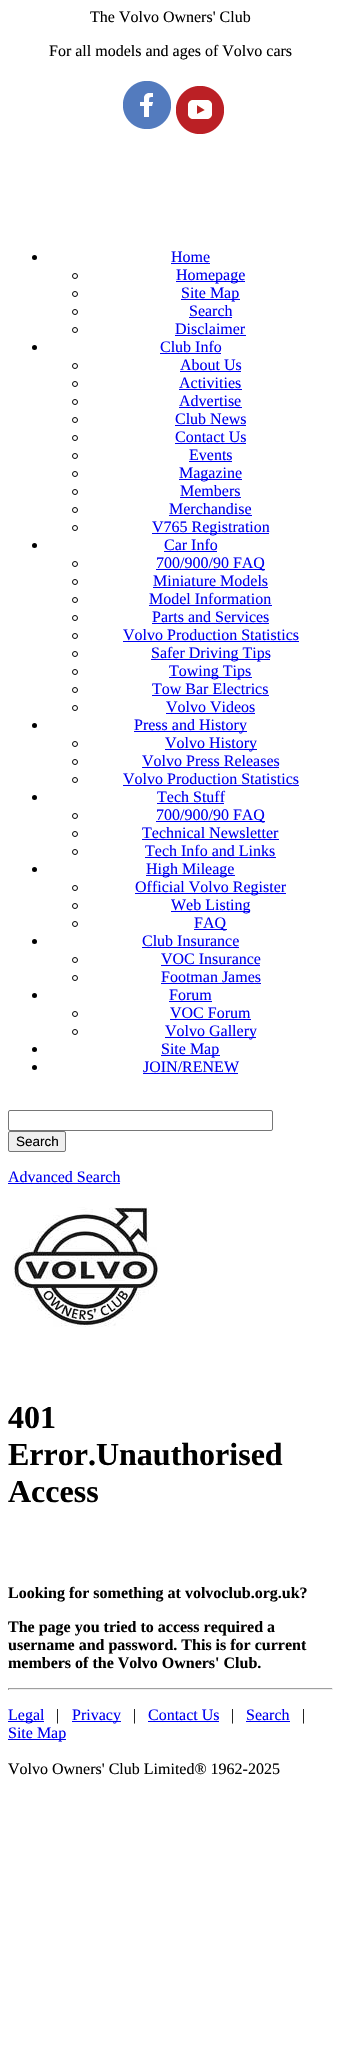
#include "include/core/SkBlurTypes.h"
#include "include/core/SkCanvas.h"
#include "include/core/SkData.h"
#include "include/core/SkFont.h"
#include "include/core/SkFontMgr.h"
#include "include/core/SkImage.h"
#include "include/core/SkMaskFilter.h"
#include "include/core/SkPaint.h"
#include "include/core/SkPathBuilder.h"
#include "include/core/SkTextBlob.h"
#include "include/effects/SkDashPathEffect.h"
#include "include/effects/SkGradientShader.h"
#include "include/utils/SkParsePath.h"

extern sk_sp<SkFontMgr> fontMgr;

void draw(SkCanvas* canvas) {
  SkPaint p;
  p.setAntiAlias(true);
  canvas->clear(SK_ColorWHITE);
  canvas->drawImageRect(SkImages::DeferredFromEncodedData(SkData::MakeFromFileName("images/1.png")), SkRect::MakeLTRB(123, 81, 171, 129), SkSamplingOptions());
  canvas->drawImageRect(SkImages::DeferredFromEncodedData(SkData::MakeFromFileName("images/2.png")), SkRect::MakeLTRB(176, 86, 224, 134), SkSamplingOptions());
  p.setColor(SK_ColorBLACK);
  canvas->drawCircle(34.5f, 257.5f, 2.5f, p);
  p.setColor(SkColorSetRGB(0, 0, 238));
  canvas->drawRect(SkRect::MakeLTRB(171, 263, 210, 264), p);
  p.setStyle(SkPaint::kStroke_Style);
  p.setStrokeWidth(1);
  p.setColor(SK_ColorBLACK);
  canvas->drawCircle(75, 276, 2.5f, p);
  p.setStyle(SkPaint::kFill_Style);
  p.setColor(SkColorSetRGB(0, 0, 238));
  canvas->drawRect(SkRect::MakeLTRB(176, 281, 245, 282), p);
  p.setStyle(SkPaint::kStroke_Style);
  p.setColor(SK_ColorBLACK);
  canvas->drawCircle(75, 294, 2.5f, p);
  p.setStyle(SkPaint::kFill_Style);
  p.setColor(SkColorSetRGB(0, 0, 238));
  canvas->drawRect(SkRect::MakeLTRB(181, 299, 240, 300), p);
  p.setStyle(SkPaint::kStroke_Style);
  p.setColor(SK_ColorBLACK);
  canvas->drawCircle(75, 312, 2.5f, p);
  p.setStyle(SkPaint::kFill_Style);
  p.setColor(SkColorSetRGB(0, 0, 238));
  canvas->drawRect(SkRect::MakeLTRB(189, 317, 232, 318), p);
  p.setStyle(SkPaint::kStroke_Style);
  p.setColor(SK_ColorBLACK);
  canvas->drawCircle(75, 330, 2.5f, p);
  p.setStyle(SkPaint::kFill_Style);
  p.setColor(SkColorSetRGB(0, 0, 238));
  canvas->drawRect(SkRect::MakeLTRB(175, 335, 246, 336), p);
  p.setColor(SK_ColorBLACK);
  canvas->drawCircle(34.5f, 347.5f, 2.5f, p);
  p.setColor(SkColorSetRGB(0, 0, 238));
  canvas->drawRect(SkRect::MakeLTRB(160, 353, 221, 354), p);
  p.setStyle(SkPaint::kStroke_Style);
  p.setColor(SK_ColorBLACK);
  canvas->drawCircle(75, 366, 2.5f, p);
  p.setStyle(SkPaint::kFill_Style);
  p.setColor(SkColorSetRGB(0, 0, 238));
  canvas->drawRect(SkRect::MakeLTRB(180, 371, 241, 372), p);
  p.setStyle(SkPaint::kStroke_Style);
  p.setColor(SK_ColorBLACK);
  canvas->drawCircle(75, 384, 2.5f, p);
  p.setStyle(SkPaint::kFill_Style);
  p.setColor(SkColorSetRGB(0, 0, 238));
  canvas->drawRect(SkRect::MakeLTRB(179, 389, 242, 390), p);
  p.setStyle(SkPaint::kStroke_Style);
  p.setColor(SK_ColorBLACK);
  canvas->drawCircle(75, 402, 2.5f, p);
  p.setStyle(SkPaint::kFill_Style);
  p.setColor(SkColorSetRGB(0, 0, 238));
  canvas->drawRect(SkRect::MakeLTRB(179, 407, 242, 408), p);
  p.setStyle(SkPaint::kStroke_Style);
  p.setColor(SK_ColorBLACK);
  canvas->drawCircle(75, 420, 2.5f, p);
  p.setStyle(SkPaint::kFill_Style);
  p.setColor(SkColorSetRGB(0, 0, 238));
  canvas->drawRect(SkRect::MakeLTRB(175, 425, 246, 426), p);
  p.setStyle(SkPaint::kStroke_Style);
  p.setColor(SK_ColorBLACK);
  canvas->drawCircle(75, 438, 2.5f, p);
  p.setStyle(SkPaint::kFill_Style);
  p.setColor(SkColorSetRGB(0, 0, 238));
  canvas->drawRect(SkRect::MakeLTRB(175, 443, 246, 444), p);
  p.setStyle(SkPaint::kStroke_Style);
  p.setColor(SK_ColorBLACK);
  canvas->drawCircle(75, 456, 2.5f, p);
  p.setStyle(SkPaint::kFill_Style);
  p.setColor(SkColorSetRGB(0, 0, 238));
  canvas->drawRect(SkRect::MakeLTRB(189, 461, 232, 462), p);
  p.setStyle(SkPaint::kStroke_Style);
  p.setColor(SK_ColorBLACK);
  canvas->drawCircle(75, 474, 2.5f, p);
  p.setStyle(SkPaint::kFill_Style);
  p.setColor(SkColorSetRGB(0, 0, 238));
  canvas->drawRect(SkRect::MakeLTRB(179, 479, 242, 480), p);
  p.setStyle(SkPaint::kStroke_Style);
  p.setColor(SK_ColorBLACK);
  canvas->drawCircle(75, 492, 2.5f, p);
  p.setStyle(SkPaint::kFill_Style);
  p.setColor(SkColorSetRGB(0, 0, 238));
  canvas->drawRect(SkRect::MakeLTRB(180, 497, 241, 498), p);
  p.setStyle(SkPaint::kStroke_Style);
  p.setColor(SK_ColorBLACK);
  canvas->drawCircle(75, 510, 2.5f, p);
  p.setStyle(SkPaint::kFill_Style);
  p.setColor(SkColorSetRGB(0, 0, 238));
  canvas->drawRect(SkRect::MakeLTRB(169, 515, 252, 516), p);
  p.setStyle(SkPaint::kStroke_Style);
  p.setColor(SK_ColorBLACK);
  canvas->drawCircle(75, 528, 2.5f, p);
  p.setStyle(SkPaint::kFill_Style);
  p.setColor(SkColorSetRGB(0, 0, 238));
  canvas->drawRect(SkRect::MakeLTRB(152, 533, 269, 534), p);
  p.setColor(SK_ColorBLACK);
  canvas->drawCircle(34.5f, 545.5f, 2.5f, p);
  p.setColor(SkColorSetRGB(0, 0, 238));
  canvas->drawRect(SkRect::MakeLTRB(164, 551, 217, 552), p);
  p.setStyle(SkPaint::kStroke_Style);
  p.setColor(SK_ColorBLACK);
  canvas->drawCircle(75, 564, 2.5f, p);
  p.setStyle(SkPaint::kFill_Style);
  p.setColor(SkColorSetRGB(0, 0, 238));
  canvas->drawRect(SkRect::MakeLTRB(156, 569, 265, 570), p);
  p.setStyle(SkPaint::kStroke_Style);
  p.setColor(SK_ColorBLACK);
  canvas->drawCircle(75, 582, 2.5f, p);
  p.setStyle(SkPaint::kFill_Style);
  p.setColor(SkColorSetRGB(0, 0, 238));
  canvas->drawRect(SkRect::MakeLTRB(153, 587, 268, 588), p);
  p.setStyle(SkPaint::kStroke_Style);
  p.setColor(SK_ColorBLACK);
  canvas->drawCircle(75, 600, 2.5f, p);
  p.setStyle(SkPaint::kFill_Style);
  p.setColor(SkColorSetRGB(0, 0, 238));
  canvas->drawRect(SkRect::MakeLTRB(149, 605, 272, 606), p);
  p.setStyle(SkPaint::kStroke_Style);
  p.setColor(SK_ColorBLACK);
  canvas->drawCircle(75, 618, 2.5f, p);
  p.setStyle(SkPaint::kFill_Style);
  p.setColor(SkColorSetRGB(0, 0, 238));
  canvas->drawRect(SkRect::MakeLTRB(152, 623, 269, 624), p);
  p.setStyle(SkPaint::kStroke_Style);
  p.setColor(SK_ColorBLACK);
  canvas->drawCircle(75, 636, 2.5f, p);
  p.setStyle(SkPaint::kFill_Style);
  p.setColor(SkColorSetRGB(0, 0, 238));
  canvas->drawRect(SkRect::MakeLTRB(123, 641, 299, 642), p);
  p.setStyle(SkPaint::kStroke_Style);
  p.setColor(SK_ColorBLACK);
  canvas->drawCircle(75, 654, 2.5f, p);
  p.setStyle(SkPaint::kFill_Style);
  p.setColor(SkColorSetRGB(0, 0, 238));
  canvas->drawRect(SkRect::MakeLTRB(151, 659, 270, 660), p);
  p.setStyle(SkPaint::kStroke_Style);
  p.setColor(SK_ColorBLACK);
  canvas->drawCircle(75, 672, 2.5f, p);
  p.setStyle(SkPaint::kFill_Style);
  p.setColor(SkColorSetRGB(0, 0, 238));
  canvas->drawRect(SkRect::MakeLTRB(169, 677, 252, 678), p);
  p.setStyle(SkPaint::kStroke_Style);
  p.setColor(SK_ColorBLACK);
  canvas->drawCircle(75, 690, 2.5f, p);
  p.setStyle(SkPaint::kFill_Style);
  p.setColor(SkColorSetRGB(0, 0, 238));
  canvas->drawRect(SkRect::MakeLTRB(152, 695, 269, 696), p);
  p.setStyle(SkPaint::kStroke_Style);
  p.setColor(SK_ColorBLACK);
  canvas->drawCircle(75, 708, 2.5f, p);
  p.setStyle(SkPaint::kFill_Style);
  p.setColor(SkColorSetRGB(0, 0, 238));
  canvas->drawRect(SkRect::MakeLTRB(166, 713, 255, 714), p);
  p.setColor(SK_ColorBLACK);
  canvas->drawCircle(34.5f, 725.5f, 2.5f, p);
  p.setColor(SkColorSetRGB(0, 0, 238));
  canvas->drawRect(SkRect::MakeLTRB(134, 731, 247, 732), p);
  p.setStyle(SkPaint::kStroke_Style);
  p.setColor(SK_ColorBLACK);
  canvas->drawCircle(75, 744, 2.5f, p);
  p.setStyle(SkPaint::kFill_Style);
  p.setColor(SkColorSetRGB(0, 0, 238));
  canvas->drawRect(SkRect::MakeLTRB(165, 749, 257, 750), p);
  p.setStyle(SkPaint::kStroke_Style);
  p.setColor(SK_ColorBLACK);
  canvas->drawCircle(75, 762, 2.5f, p);
  p.setStyle(SkPaint::kFill_Style);
  p.setColor(SkColorSetRGB(0, 0, 238));
  canvas->drawRect(SkRect::MakeLTRB(142, 767, 279, 768), p);
  p.setStyle(SkPaint::kStroke_Style);
  p.setColor(SK_ColorBLACK);
  canvas->drawCircle(75, 780, 2.5f, p);
  p.setStyle(SkPaint::kFill_Style);
  p.setColor(SkColorSetRGB(0, 0, 238));
  canvas->drawRect(SkRect::MakeLTRB(123, 785, 299, 786), p);
  p.setColor(SK_ColorBLACK);
  canvas->drawCircle(34.5f, 797.5f, 2.5f, p);
  p.setColor(SkColorSetRGB(0, 0, 238));
  canvas->drawRect(SkRect::MakeLTRB(157, 803, 224, 804), p);
  p.setStyle(SkPaint::kStroke_Style);
  p.setColor(SK_ColorBLACK);
  canvas->drawCircle(75, 816, 2.5f, p);
  p.setStyle(SkPaint::kFill_Style);
  p.setColor(SkColorSetRGB(0, 0, 238));
  canvas->drawRect(SkRect::MakeLTRB(156, 821, 265, 822), p);
  p.setStyle(SkPaint::kStroke_Style);
  p.setColor(SK_ColorBLACK);
  canvas->drawCircle(75, 834, 2.5f, p);
  p.setStyle(SkPaint::kFill_Style);
  p.setColor(SkColorSetRGB(0, 0, 238));
  canvas->drawRect(SkRect::MakeLTRB(142, 839, 279, 840), p);
  p.setStyle(SkPaint::kStroke_Style);
  p.setColor(SK_ColorBLACK);
  canvas->drawCircle(75, 852, 2.5f, p);
  p.setStyle(SkPaint::kFill_Style);
  p.setColor(SkColorSetRGB(0, 0, 238));
  canvas->drawRect(SkRect::MakeLTRB(145, 857, 276, 858), p);
  p.setColor(SK_ColorBLACK);
  canvas->drawCircle(34.5f, 869.5f, 2.5f, p);
  p.setColor(SkColorSetRGB(0, 0, 238));
  canvas->drawRect(SkRect::MakeLTRB(146, 875, 235, 876), p);
  p.setStyle(SkPaint::kStroke_Style);
  p.setColor(SK_ColorBLACK);
  canvas->drawCircle(75, 888, 2.5f, p);
  p.setStyle(SkPaint::kFill_Style);
  p.setColor(SkColorSetRGB(0, 0, 238));
  canvas->drawRect(SkRect::MakeLTRB(135, 893, 286, 894), p);
  p.setStyle(SkPaint::kStroke_Style);
  p.setColor(SK_ColorBLACK);
  canvas->drawCircle(75, 906, 2.5f, p);
  p.setStyle(SkPaint::kFill_Style);
  p.setColor(SkColorSetRGB(0, 0, 238));
  canvas->drawRect(SkRect::MakeLTRB(171, 911, 250, 912), p);
  p.setStyle(SkPaint::kStroke_Style);
  p.setColor(SK_ColorBLACK);
  canvas->drawCircle(75, 924, 2.5f, p);
  p.setStyle(SkPaint::kFill_Style);
  p.setColor(SkColorSetRGB(0, 0, 238));
  canvas->drawRect(SkRect::MakeLTRB(194, 929, 227, 930), p);
  p.setColor(SK_ColorBLACK);
  canvas->drawCircle(34.5f, 941.5f, 2.5f, p);
  p.setColor(SkColorSetRGB(0, 0, 238));
  canvas->drawRect(SkRect::MakeLTRB(142, 947, 239, 948), p);
  p.setStyle(SkPaint::kStroke_Style);
  p.setColor(SK_ColorBLACK);
  canvas->drawCircle(75, 960, 2.5f, p);
  p.setStyle(SkPaint::kFill_Style);
  p.setColor(SkColorSetRGB(0, 0, 238));
  canvas->drawRect(SkRect::MakeLTRB(161, 965, 260, 966), p);
  p.setStyle(SkPaint::kStroke_Style);
  p.setColor(SK_ColorBLACK);
  canvas->drawCircle(75, 978, 2.5f, p);
  p.setStyle(SkPaint::kFill_Style);
  p.setColor(SkColorSetRGB(0, 0, 238));
  canvas->drawRect(SkRect::MakeLTRB(161, 983, 261, 984), p);
  p.setColor(SK_ColorBLACK);
  canvas->drawCircle(34.5f, 995.5f, 2.5f, p);
  p.setColor(SkColorSetRGB(0, 0, 238));
  canvas->drawRect(SkRect::MakeLTRB(169, 1001, 212, 1002), p);
  p.setStyle(SkPaint::kStroke_Style);
  p.setColor(SK_ColorBLACK);
  canvas->drawCircle(75, 1014, 2.5f, p);
  p.setStyle(SkPaint::kFill_Style);
  p.setColor(SkColorSetRGB(0, 0, 238));
  canvas->drawRect(SkRect::MakeLTRB(170, 1019, 251, 1020), p);
  p.setStyle(SkPaint::kStroke_Style);
  p.setColor(SK_ColorBLACK);
  canvas->drawCircle(75, 1032, 2.5f, p);
  p.setStyle(SkPaint::kFill_Style);
  p.setColor(SkColorSetRGB(0, 0, 238));
  canvas->drawRect(SkRect::MakeLTRB(165, 1037, 256, 1038), p);
  p.setColor(SK_ColorBLACK);
  canvas->drawCircle(34.5f, 1049.5f, 2.5f, p);
  p.setColor(SkColorSetRGB(0, 0, 238));
  canvas->drawRect(SkRect::MakeLTRB(161, 1055, 220, 1056), p);
  p.setColor(SK_ColorBLACK);
  canvas->drawCircle(34.5f, 1067.5f, 2.5f, p);
  p.setColor(SkColorSetRGB(0, 0, 238));
  canvas->drawRect(SkRect::MakeLTRB(143, 1073, 238, 1074), p);
  p.setStyle(SkPaint::kStroke_Style);
  p.setColor(SkColorSetRGB(118, 118, 118));
  canvas->drawRoundRect(SkRect::MakeLTRB(8.5f, 1110.5f, 272.5f, 1130.5f), 1.5f, 1.5f, p);
  p.setStyle(SkPaint::kFill_Style);
  p.setColor(SkColorSetRGB(239, 239, 239));
  canvas->drawRoundRect(SkRect::MakeLTRB(8.5f, 1131.5f, 65.5f, 1151.5f), 1.5f, 1.5f, p);
  p.setStyle(SkPaint::kStroke_Style);
  p.setColor(SkColorSetRGB(118, 118, 118));
  canvas->drawRoundRect(SkRect::MakeLTRB(8.5f, 1131.5f, 65.5f, 1151.5f), 1.5f, 1.5f, p);
  p.setStyle(SkPaint::kFill_Style);
  p.setColor(SkColorSetRGB(0, 0, 238));
  canvas->drawRect(SkRect::MakeLTRB(8, 1183, 120, 1184), p);
  canvas->drawImageRect(SkImages::DeferredFromEncodedData(SkData::MakeFromFileName("images/3.png")), SkRect::MakeLTRB(13, 1207, 159, 1327), SkSamplingOptions());
  p.setColor(SkColorSetRGB(159, 159, 159));
  canvas->drawRect(SkRect::MakeLTRB(8, 1688, 333, 1689), p);
  p.setColor(SkColorSetRGB(238, 238, 238));
  canvas->drawRect(SkRect::MakeLTRB(332, 1688, 333, 1690), p);
  canvas->drawRect(SkRect::MakeLTRB(8, 1689, 333, 1690), p);
  p.setColor(SkColorSetRGB(159, 159, 159));
  canvas->drawRect(SkRect::MakeLTRB(8, 1688, 9, 1690), p);
  p.setColor(SkColorSetRGB(0, 0, 238));
  canvas->drawRect(SkRect::MakeLTRB(8, 1721, 44, 1722), p);
  canvas->drawRect(SkRect::MakeLTRB(72, 1721, 121, 1722), p);
  canvas->drawRect(SkRect::MakeLTRB(148, 1721, 219, 1722), p);
  canvas->drawRect(SkRect::MakeLTRB(246, 1721, 290, 1722), p);
  canvas->drawRect(SkRect::MakeLTRB(8, 1739, 66, 1740), p);
  SkFont font1(fontMgr->matchFamilyStyle("Liberation Serif", SkFontStyle::Normal()), 16);
  font1.setSubpixel(true);
  p.setColor(SK_ColorBLACK);
  canvas->drawString("The Volvo Owners' Club", 90, 22, font1, p);
  canvas->drawString("For all models and ages of Volvo cars", 49, 56, font1, p);
  p.setColor(SkColorSetRGB(0, 0, 238));
  canvas->drawString("Home", 171, 262, font1, p);
  canvas->drawString("Homepage", 176, 280, font1, p);
  canvas->drawString("Site Map", 181, 298, font1, p);
  canvas->drawString("Search", 189, 316, font1, p);
  canvas->drawString("Disclaimer", 175, 334, font1, p);
  canvas->drawString("Club Info", 160, 352, font1, p);
  canvas->drawString("About Us", 180, 370, font1, p);
  canvas->drawString("Activities", 179, 388, font1, p);
  canvas->drawString("Advertise", 179, 406, font1, p);
  canvas->drawString("Club News", 175, 424, font1, p);
  canvas->drawString("Contact Us", 175, 442, font1, p);
  canvas->drawString("Events", 189, 460, font1, p);
  canvas->drawString("Magazine", 179, 478, font1, p);
  canvas->drawString("Members", 180, 496, font1, p);
  canvas->drawString("Merchandise", 169, 514, font1, p);
  canvas->drawString("V765 Registration", 152, 532, font1, p);
  canvas->drawString("Car Info", 164, 550, font1, p);
  canvas->drawString("700/900/90 FAQ", 156, 568, font1, p);
  canvas->drawString("Miniature Models", 153, 586, font1, p);
  canvas->drawString("Model Information", 149, 604, font1, p);
  canvas->drawString("Parts and Services", 152, 622, font1, p);
  canvas->drawString("Volvo Production Statistics", 123, 640, font1, p);
  canvas->drawString("Safer Driving Tips", 151, 658, font1, p);
  canvas->drawString("Towing Tips", 169, 676, font1, p);
  canvas->drawString("Tow Bar Electrics", 152, 694, font1, p);
  canvas->drawString("Volvo Videos", 166, 712, font1, p);
  canvas->drawString("Press and History", 134, 730, font1, p);
  canvas->drawString("Volvo History", 165, 748, font1, p);
  canvas->drawString("Volvo Press Releases", 142, 766, font1, p);
  canvas->drawString("Volvo Production Statistics", 123, 784, font1, p);
  canvas->drawString("Tech Stuff", 157, 802, font1, p);
  canvas->drawString("700/900/90 FAQ", 156, 820, font1, p);
  canvas->drawString("Technical Newsletter", 142, 838, font1, p);
  canvas->drawString("Tech Info and Links", 145, 856, font1, p);
  canvas->drawString("High Mileage", 146, 874, font1, p);
  canvas->drawString("Official Volvo Register", 135, 892, font1, p);
  canvas->drawString("Web Listing", 171, 910, font1, p);
  canvas->drawString("FAQ", 194, 928, font1, p);
  canvas->drawString("Club Insurance", 142, 946, font1, p);
  canvas->drawString("VOC Insurance", 161, 964, font1, p);
  canvas->drawString("Footman James", 161, 982, font1, p);
  canvas->drawString("Forum", 169, 1000, font1, p);
  canvas->drawString("VOC Forum", 170, 1018, font1, p);
  canvas->drawString("Volvo Gallery", 165, 1036, font1, p);
  canvas->drawString("Site Map", 161, 1054, font1, p);
  canvas->drawString("JOIN/RENEW", 143, 1072, font1, p);
  SkFont font2(fontMgr->matchFamilyStyle("Liberation Sans", SkFontStyle::Normal()), 13.5f);
  font2.setSubpixel(true);
  p.setColor(SK_ColorBLACK);
  canvas->drawString("Search", 16, 1146, font2, p);
  p.setColor(SkColorSetRGB(0, 0, 238));
  canvas->drawString("Advanced Search", 8, 1182, font1, p);
  SkFont font3(fontMgr->matchFamilyStyle("Liberation Serif", SkFontStyle::Bold()), 32);
  font3.setSubpixel(true);
  p.setColor(SK_ColorBLACK);
  canvas->drawString("401", 8, 1428, font3, p);
  canvas->drawString("Error.Unauthorised", 8, 1465, font3, p);
  canvas->drawString("Access", 8, 1502, font3, p);
  SkFont font4(fontMgr->matchFamilyStyle("Liberation Serif", SkFontStyle::Bold()), 16);
  font4.setSubpixel(true);
  canvas->drawString("Looking for something at volvoclub.org.uk?", 8, 1598, font4, p);
  canvas->drawString("The page you tried to access required a", 8, 1632, font4, p);
  canvas->drawString("username and password. This is for current", 8, 1650, font4, p);
  canvas->drawString("members of the Volvo Owners' Club.", 8, 1668, font4, p);
  p.setColor(SkColorSetRGB(0, 0, 238));
  canvas->drawString("Legal", 8, 1720, font1, p);
  p.setColor(SK_ColorBLACK);
  canvas->drawString("|", 56, 1720, font1, p);
  p.setColor(SkColorSetRGB(0, 0, 238));
  canvas->drawString("Privacy", 72, 1720, font1, p);
  p.setColor(SK_ColorBLACK);
  canvas->drawString("|", 133, 1720, font1, p);
  p.setColor(SkColorSetRGB(0, 0, 238));
  canvas->drawString("Contact Us", 148, 1720, font1, p);
  p.setColor(SK_ColorBLACK);
  canvas->drawString("|", 231, 1720, font1, p);
  p.setColor(SkColorSetRGB(0, 0, 238));
  canvas->drawString("Search", 246, 1720, font1, p);
  p.setColor(SK_ColorBLACK);
  canvas->drawString("|", 302, 1720, font1, p);
  p.setColor(SkColorSetRGB(0, 0, 238));
  canvas->drawString("Site Map", 8, 1738, font1, p);
  p.setColor(SK_ColorBLACK);
  canvas->drawString("Volvo Owners' Club Limited® 1962-2025", 8, 1774, font1, p);
}
